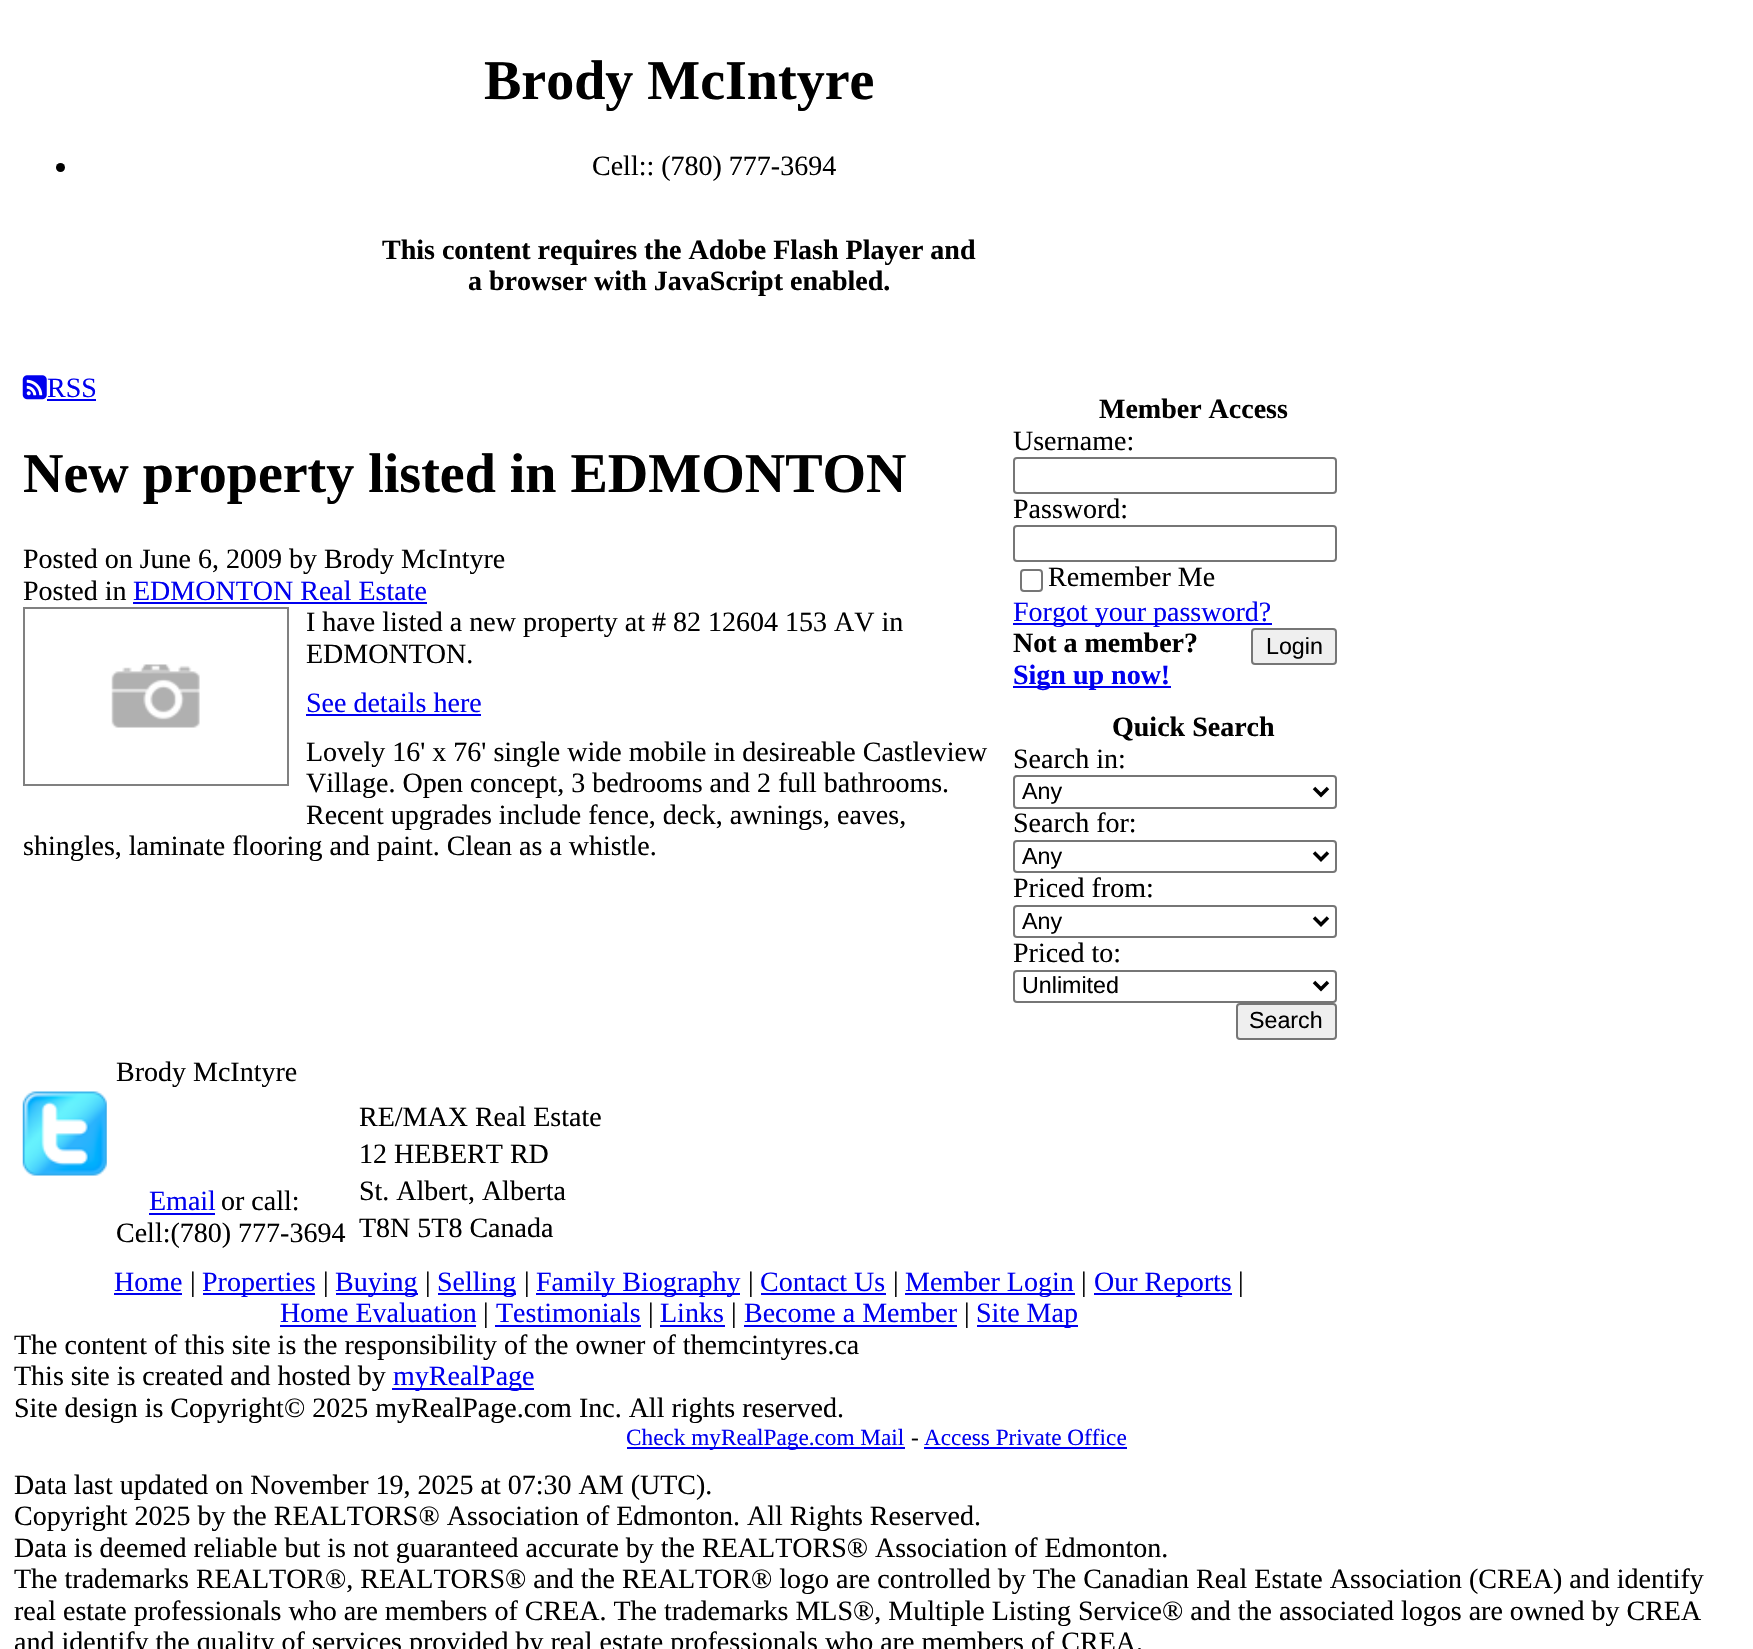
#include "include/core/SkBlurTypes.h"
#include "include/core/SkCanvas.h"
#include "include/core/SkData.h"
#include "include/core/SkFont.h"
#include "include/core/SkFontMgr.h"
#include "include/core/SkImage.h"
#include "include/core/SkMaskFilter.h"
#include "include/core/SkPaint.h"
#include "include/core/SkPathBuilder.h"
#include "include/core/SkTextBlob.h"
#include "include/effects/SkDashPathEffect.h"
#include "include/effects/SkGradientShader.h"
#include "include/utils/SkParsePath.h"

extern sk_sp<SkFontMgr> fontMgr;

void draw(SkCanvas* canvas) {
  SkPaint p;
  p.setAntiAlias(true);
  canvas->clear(SK_ColorWHITE);
  p.setColor(SK_ColorBLACK);
  canvas->drawCircle(60.5f, 167.5f, 4.5f, p);
  canvas->drawImageRect(SkImages::DeferredFromEncodedData(SkData::MakeFromFileName("images/1.png")), SkRect::MakeLTRB(22, 375, 47, 400), SkSamplingOptions());
  p.setColor(SkColorSetRGB(0, 0, 238));
  canvas->drawRect(SkRect::MakeLTRB(47, 399, 96, 401), p);
  canvas->drawRect(SkRect::MakeLTRB(133, 602, 427, 604), p);
  p.setStyle(SkPaint::kStroke_Style);
  p.setStrokeWidth(2);
  p.setColor(SkColorSetRGB(128, 128, 128));
  canvas->drawRect(SkRect::MakeLTRB(24, 608, 288, 785), p);
  canvas->drawImageRect(SkImages::DeferredFromEncodedData(SkData::MakeFromFileName("images/2.png")), SkRect::MakeLTRB(111, 664, 200, 728), SkSamplingOptions());
  p.setStyle(SkPaint::kFill_Style);
  p.setColor(SkColorSetRGB(0, 0, 238));
  canvas->drawRect(SkRect::MakeLTRB(306, 714, 481, 716), p);
  p.setStyle(SkPaint::kStroke_Style);
  p.setColor(SkColorSetRGB(118, 118, 118));
  canvas->drawRoundRect(SkRect::MakeLTRB(1014, 458, 1336, 493), 3, 3, p);
  canvas->drawRoundRect(SkRect::MakeLTRB(1014, 526, 1336, 561), 3, 3, p);
  canvas->drawRoundRect(SkRect::MakeLTRB(1021, 570, 1042, 591), 3, 3, p);
  p.setStyle(SkPaint::kFill_Style);
  p.setColor(SkColorSetRGB(0, 0, 238));
  canvas->drawRect(SkRect::MakeLTRB(1013, 623, 1272, 625), p);
  canvas->drawRect(SkRect::MakeLTRB(1013, 686, 1171, 688), p);
  p.setColor(SkColorSetRGB(239, 239, 239));
  canvas->drawRoundRect(SkRect::MakeLTRB(1252, 629, 1336, 664), 3, 3, p);
  p.setStyle(SkPaint::kStroke_Style);
  p.setColor(SkColorSetRGB(118, 118, 118));
  canvas->drawRoundRect(SkRect::MakeLTRB(1252, 629, 1336, 664), 3, 3, p);
  canvas->drawRoundRect(SkRect::MakeLTRB(1014, 776, 1336, 808), 3, 3, p);
  p.setStrokeWidth(3.5f);
  p.setColor(SK_ColorBLACK);
  canvas->drawPath(SkPathBuilder().moveTo(1314, 788).lineTo(1321, 795).lineTo(1328, 788).detach(), p);
  p.setStrokeWidth(2);
  p.setColor(SkColorSetRGB(118, 118, 118));
  canvas->drawRoundRect(SkRect::MakeLTRB(1014, 841, 1336, 872), 3, 3, p);
  p.setStrokeWidth(3.5f);
  p.setColor(SK_ColorBLACK);
  canvas->drawPath(SkPathBuilder().moveTo(1314, 852.5f).lineTo(1321, 859.5f).lineTo(1328, 852.5f).detach(), p);
  p.setStrokeWidth(2);
  p.setColor(SkColorSetRGB(118, 118, 118));
  canvas->drawRoundRect(SkRect::MakeLTRB(1014, 906, 1336, 937), 3, 3, p);
  p.setStrokeWidth(3.5f);
  p.setColor(SK_ColorBLACK);
  canvas->drawPath(SkPathBuilder().moveTo(1314, 917.5f).lineTo(1321, 924.5f).lineTo(1328, 917.5f).detach(), p);
  p.setStrokeWidth(2);
  p.setColor(SkColorSetRGB(118, 118, 118));
  canvas->drawRoundRect(SkRect::MakeLTRB(1014, 971, 1336, 1002), 3, 3, p);
  p.setStrokeWidth(3.5f);
  p.setColor(SK_ColorBLACK);
  canvas->drawPath(SkPathBuilder().moveTo(1314, 982).lineTo(1321, 989).lineTo(1328, 982).detach(), p);
  p.setStyle(SkPaint::kFill_Style);
  p.setColor(SkColorSetRGB(239, 239, 239));
  canvas->drawRoundRect(SkRect::MakeLTRB(1237, 1004, 1336, 1039), 3, 3, p);
  p.setStyle(SkPaint::kStroke_Style);
  p.setStrokeWidth(2);
  p.setColor(SkColorSetRGB(118, 118, 118));
  canvas->drawRoundRect(SkRect::MakeLTRB(1237, 1004, 1336, 1039), 3, 3, p);
  canvas->drawImageRect(SkImages::DeferredFromEncodedData(SkData::MakeFromFileName("images/3.png")), SkRect::MakeLTRB(22, 1091, 107, 1176), SkSamplingOptions());
  p.setStyle(SkPaint::kFill_Style);
  p.setColor(SkColorSetRGB(0, 0, 238));
  canvas->drawRect(SkRect::MakeLTRB(149, 1213, 215, 1215), p);
  canvas->drawRect(SkRect::MakeLTRB(114, 1293, 182, 1295), p);
  canvas->drawRect(SkRect::MakeLTRB(203, 1293, 315, 1295), p);
  canvas->drawRect(SkRect::MakeLTRB(336, 1293, 418, 1295), p);
  canvas->drawRect(SkRect::MakeLTRB(438, 1293, 516, 1295), p);
  canvas->drawRect(SkRect::MakeLTRB(536, 1293, 740, 1295), p);
  canvas->drawRect(SkRect::MakeLTRB(761, 1293, 886, 1295), p);
  canvas->drawRect(SkRect::MakeLTRB(905, 1293, 1075, 1295), p);
  canvas->drawRect(SkRect::MakeLTRB(1094, 1293, 1232, 1295), p);
  canvas->drawRect(SkRect::MakeLTRB(280, 1325, 476, 1327), p);
  canvas->drawRect(SkRect::MakeLTRB(495, 1325, 641, 1327), p);
  canvas->drawRect(SkRect::MakeLTRB(660, 1325, 725, 1327), p);
  canvas->drawRect(SkRect::MakeLTRB(744, 1325, 957, 1327), p);
  canvas->drawRect(SkRect::MakeLTRB(977, 1325, 1078, 1327), p);
  canvas->drawRect(SkRect::MakeLTRB(392, 1388, 534, 1390), p);
  canvas->drawRect(SkRect::MakeLTRB(627, 1447, 905, 1449), p);
  canvas->drawRect(SkRect::MakeLTRB(924, 1447, 1127, 1449), p);
  SkFont font1(fontMgr->matchFamilyStyle("Liberation Serif", SkFontStyle::Bold()), 56);
  font1.setSubpixel(true);
  p.setColor(SK_ColorBLACK);
  canvas->drawString("Brody McIntyre", 484, 99, font1, p);
  SkFont font2(fontMgr->matchFamilyStyle("Liberation Serif", SkFontStyle::Normal()), 28);
  font2.setSubpixel(true);
  canvas->drawString("Cell:: (780) 777-3694", 592, 175, font2, p);
  SkFont font3(fontMgr->matchFamilyStyle("Liberation Serif", SkFontStyle::Bold()), 28);
  font3.setSubpixel(true);
  canvas->drawString("This content requires the Adobe Flash Player and", 382, 259, font3, p);
  canvas->drawString("a browser with JavaScript enabled.", 468, 290, font3, p);
  p.setColor(SkColorSetRGB(0, 0, 238));
  canvas->drawString("RSS", 47, 397, font2, p);
  p.setColor(SK_ColorBLACK);
  canvas->drawString("New property listed in EDMONTON", 23, 492, font1, p);
  canvas->drawString("Posted on June 6, 2009 by Brody McIntyre", 23, 568, font2, p);
  canvas->drawString("Posted in", 23, 600, font2, p);
  p.setColor(SkColorSetRGB(0, 0, 238));
  canvas->drawString("EDMONTON Real Estate", 133, 600, font2, p);
  p.setColor(SK_ColorBLACK);
  canvas->drawString("I have listed a new property at # 82 12604 153 AV in", 306, 631, font2, p);
  canvas->drawString("EDMONTON.", 306, 663, font2, p);
  p.setColor(SkColorSetRGB(0, 0, 238));
  canvas->drawString("See details here", 306, 712, font2, p);
  p.setColor(SK_ColorBLACK);
  canvas->drawString("Lovely 16' x 76' single wide mobile in desireable Castleview", 306, 761, font2, p);
  canvas->drawString("Village. Open concept, 3 bedrooms and 2 full bathrooms.", 306, 792, font2, p);
  canvas->drawString("Recent upgrades include fence, deck, awnings, eaves,", 306, 824, font2, p);
  canvas->drawString("shingles, laminate flooring and paint. Clean as a whistle.", 23, 855, font2, p);
  canvas->drawString("Member Access", 1099, 418, font3, p);
  canvas->drawString("Username:", 1013, 450, font2, p);
  canvas->drawString("Password:", 1013, 518, font2, p);
  canvas->drawString("Remember Me", 1048, 586, font2, p);
  p.setColor(SkColorSetRGB(0, 0, 238));
  canvas->drawString("Forgot your password?", 1013, 621, font2, p);
  p.setColor(SK_ColorBLACK);
  canvas->drawString("Not a member?", 1013, 652, font3, p);
  p.setColor(SkColorSetRGB(0, 0, 238));
  canvas->drawString("Sign up now!", 1013, 684, font3, p);
  SkFont font4(fontMgr->matchFamilyStyle("Liberation Sans", SkFontStyle::Normal()), 23.25f);
  font4.setSubpixel(true);
  p.setColor(SK_ColorBLACK);
  canvas->drawString("Login", 1266, 654, font4, p);
  canvas->drawString("Quick Search", 1112, 736, font3, p);
  canvas->drawString("Search in:", 1013, 768, font2, p);
  canvas->drawString("Any", 1022, 799, font4, p);
  canvas->drawString("Search for:", 1013, 832, font2, p);
  canvas->drawString("Any", 1022, 864, font4, p);
  canvas->drawString("Priced from:", 1013, 897, font2, p);
  canvas->drawString("Any", 1022, 929, font4, p);
  canvas->drawString("Priced to:", 1013, 962, font2, p);
  canvas->drawString("Unlimited", 1022, 993, font4, p);
  canvas->drawString("Search", 1249, 1028, font4, p);
  canvas->drawString("Brody McIntyre", 116, 1081, font2, p);
  p.setColor(SkColorSetRGB(0, 0, 238));
  canvas->drawString("Email", 149, 1210, font2, p);
  p.setColor(SK_ColorBLACK);
  canvas->drawString("or call:", 221, 1210, font2, p);
  canvas->drawString("Cell:(780) 777-3694", 116, 1242, font2, p);
  canvas->drawString("RE/MAX Real Estate", 359, 1126, font2, p);
  canvas->drawString("12 HEBERT RD", 359, 1163, font2, p);
  canvas->drawString("St. Albert, Alberta", 359, 1200, font2, p);
  canvas->drawString("T8N 5T8 Canada", 359, 1237, font2, p);
  p.setColor(SkColorSetRGB(0, 0, 238));
  canvas->drawString("Home", 114, 1291, font2, p);
  p.setColor(SK_ColorBLACK);
  canvas->drawString("|", 190, 1291, font2, p);
  p.setColor(SkColorSetRGB(0, 0, 238));
  canvas->drawString("Properties", 202, 1291, font2, p);
  p.setColor(SK_ColorBLACK);
  canvas->drawString("|", 323, 1291, font2, p);
  p.setColor(SkColorSetRGB(0, 0, 238));
  canvas->drawString("Buying", 335, 1291, font2, p);
  p.setColor(SK_ColorBLACK);
  canvas->drawString("|", 425, 1291, font2, p);
  p.setColor(SkColorSetRGB(0, 0, 238));
  canvas->drawString("Selling", 437, 1291, font2, p);
  p.setColor(SK_ColorBLACK);
  canvas->drawString("|", 524, 1291, font2, p);
  p.setColor(SkColorSetRGB(0, 0, 238));
  canvas->drawString("Family Biography", 536, 1291, font2, p);
  p.setColor(SK_ColorBLACK);
  canvas->drawString("|", 748, 1291, font2, p);
  p.setColor(SkColorSetRGB(0, 0, 238));
  canvas->drawString("Contact Us", 760, 1291, font2, p);
  p.setColor(SK_ColorBLACK);
  canvas->drawString("|", 893, 1291, font2, p);
  p.setColor(SkColorSetRGB(0, 0, 238));
  canvas->drawString("Member Login", 905, 1291, font2, p);
  p.setColor(SK_ColorBLACK);
  canvas->drawString("|", 1081, 1291, font2, p);
  p.setColor(SkColorSetRGB(0, 0, 238));
  canvas->drawString("Our Reports", 1094, 1291, font2, p);
  p.setColor(SK_ColorBLACK);
  canvas->drawString("|", 1238, 1291, font2, p);
  p.setColor(SkColorSetRGB(0, 0, 238));
  canvas->drawString("Home Evaluation", 280, 1322, font2, p);
  p.setColor(SK_ColorBLACK);
  canvas->drawString("|", 483, 1322, font2, p);
  p.setColor(SkColorSetRGB(0, 0, 238));
  canvas->drawString("Testimonials", 496, 1322, font2, p);
  p.setColor(SK_ColorBLACK);
  canvas->drawString("|", 648, 1322, font2, p);
  p.setColor(SkColorSetRGB(0, 0, 238));
  canvas->drawString("Links", 660, 1322, font2, p);
  p.setColor(SK_ColorBLACK);
  canvas->drawString("|", 731, 1322, font2, p);
  p.setColor(SkColorSetRGB(0, 0, 238));
  canvas->drawString("Become a Member", 744, 1322, font2, p);
  p.setColor(SK_ColorBLACK);
  canvas->drawString("|", 964, 1322, font2, p);
  p.setColor(SkColorSetRGB(0, 0, 238));
  canvas->drawString("Site Map", 976, 1322, font2, p);
  p.setColor(SK_ColorBLACK);
  canvas->drawString("The content of this site is the responsibility of the owner of themcintyres.ca", 14, 1354, font2, p);
  canvas->drawString("This site is created and hosted by", 14, 1385, font2, p);
  p.setColor(SkColorSetRGB(0, 0, 238));
  canvas->drawString("myRealPage", 393, 1385, font2, p);
  p.setColor(SK_ColorBLACK);
  canvas->drawString("Site design is Copyright© 2025 myRealPage.com Inc. All rights reserved.", 14, 1417, font2, p);
  SkFont font5(fontMgr->matchFamilyStyle("Liberation Serif", SkFontStyle::Normal()), 23.25f);
  font5.setSubpixel(true);
  p.setColor(SkColorSetRGB(0, 0, 238));
  canvas->drawString("Check myRealPage.com Mail", 626, 1445, font5, p);
  p.setColor(SK_ColorBLACK);
  canvas->drawString("-", 911, 1445, font5, p);
  p.setColor(SkColorSetRGB(0, 0, 238));
  canvas->drawString("Access Private Office", 924, 1445, font5, p);
  p.setColor(SK_ColorBLACK);
  canvas->drawString("Data last updated on November 19, 2025 at 07:30 AM (UTC).", 14, 1494, font2, p);
  canvas->drawString("Copyright 2025 by the REALTORS® Association of Edmonton. All Rights Reserved.", 14, 1525, font2, p);
  canvas->drawString("Data is deemed reliable but is not guaranteed accurate by the REALTORS® Association of Edmonton.", 14, 1557, font2, p);
  canvas->drawString("The trademarks REALTOR®, REALTORS® and the REALTOR® logo are controlled by The Canadian Real Estate Association (CREA) and identify", 14, 1588, font2, p);
  canvas->drawString("real estate professionals who are members of CREA. The trademarks MLS®, Multiple Listing Service® and the associated logos are owned by CREA", 14, 1620, font2, p);
  canvas->drawString("and identify the quality of services provided by real estate professionals who are members of CREA.", 14, 1651, font2, p);
}
